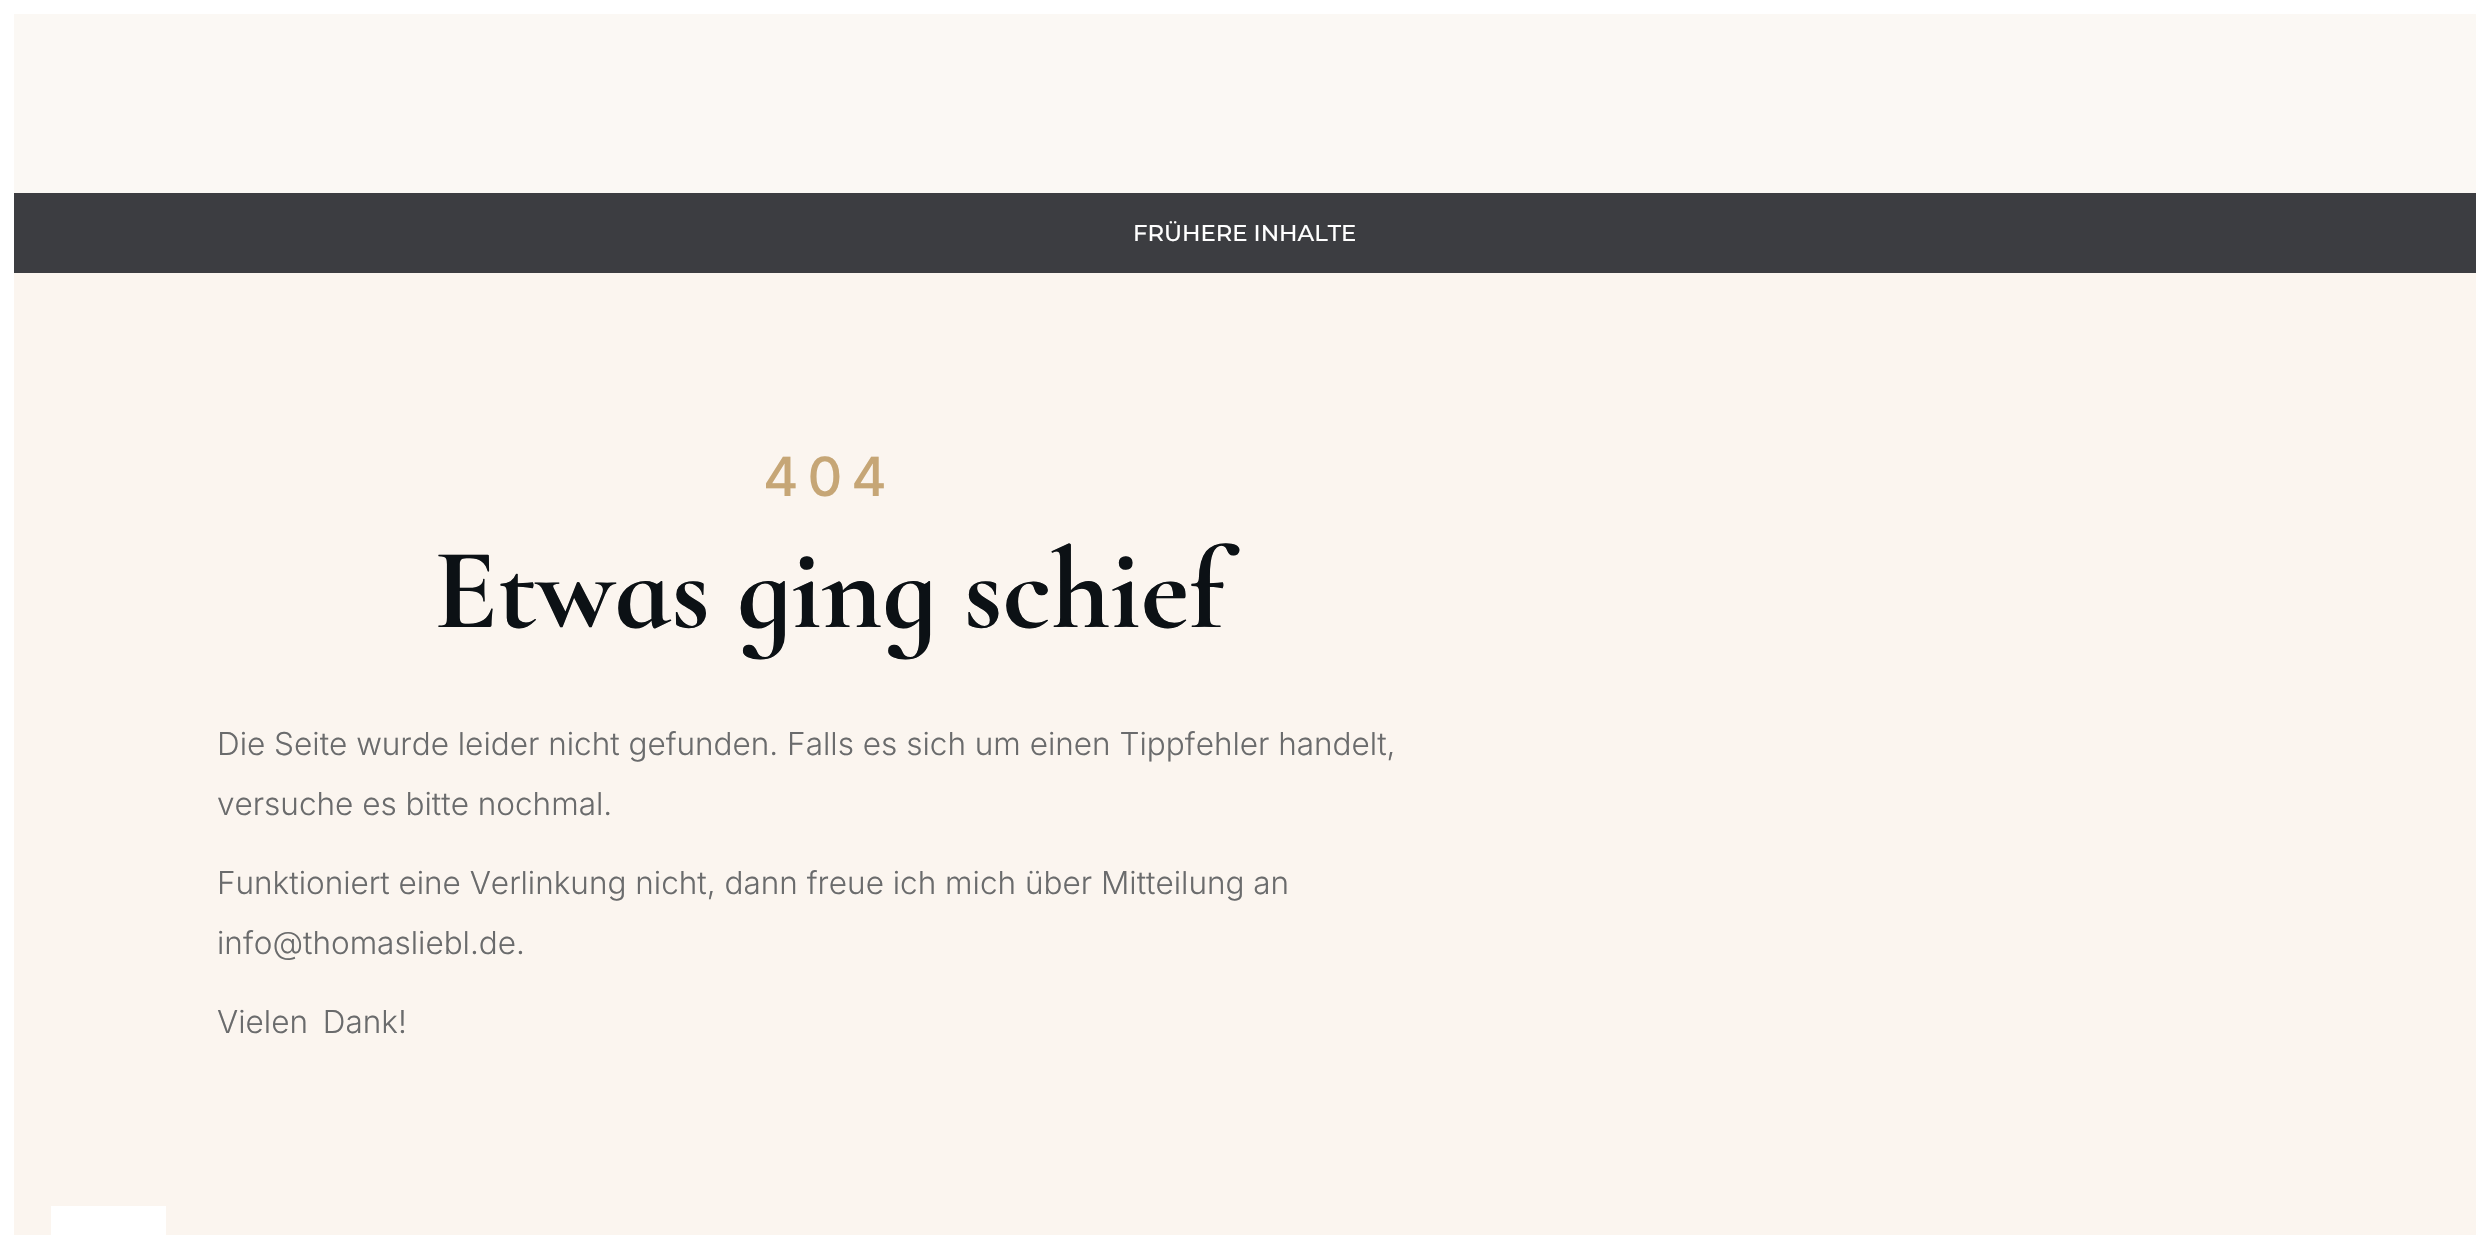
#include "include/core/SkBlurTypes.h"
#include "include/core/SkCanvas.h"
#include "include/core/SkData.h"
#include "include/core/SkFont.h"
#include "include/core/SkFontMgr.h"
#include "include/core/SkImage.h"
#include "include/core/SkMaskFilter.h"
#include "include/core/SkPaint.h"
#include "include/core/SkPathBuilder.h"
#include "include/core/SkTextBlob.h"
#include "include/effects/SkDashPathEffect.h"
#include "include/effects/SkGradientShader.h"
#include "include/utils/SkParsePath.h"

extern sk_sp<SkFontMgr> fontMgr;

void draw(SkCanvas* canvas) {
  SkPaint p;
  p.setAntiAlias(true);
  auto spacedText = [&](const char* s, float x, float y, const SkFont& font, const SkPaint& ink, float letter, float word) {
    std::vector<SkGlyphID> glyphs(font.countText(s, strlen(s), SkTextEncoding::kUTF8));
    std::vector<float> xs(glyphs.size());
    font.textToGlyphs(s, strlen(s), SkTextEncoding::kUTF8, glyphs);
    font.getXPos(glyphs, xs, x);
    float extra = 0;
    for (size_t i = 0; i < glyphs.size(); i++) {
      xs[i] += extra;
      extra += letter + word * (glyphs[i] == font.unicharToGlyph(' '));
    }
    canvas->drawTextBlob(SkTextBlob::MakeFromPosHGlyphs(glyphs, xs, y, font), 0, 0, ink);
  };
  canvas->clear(SK_ColorWHITE);
  p.setColor(SkColorSetRGB(251, 245, 239));
  canvas->drawRect(SkRect::MakeLTRB(14, 273, 2476, 1235), p);
  p.setColor(SkColorSetRGB(251, 248, 244));
  canvas->drawRect(SkRect::MakeLTRB(14, 14, 2476, 193), p);
  p.setColor(SkColorSetRGB(60, 61, 65));
  canvas->drawRect(SkRect::MakeLTRB(14, 193, 2476, 273), p);
  p.setColor(SK_ColorWHITE);
  canvas->drawRect(SkRect::MakeLTRB(51, 1206, 166, 1235), p);
  SkFont font1(fontMgr->matchFamilyStyle("Montserrat", SkFontStyle(500, SkFontStyle::kNormal_Width, SkFontStyle::kUpright_Slant)), 22.75f);
  font1.setSubpixel(true);
  canvas->drawString("FRÜHERE INHALTE", 1133, 241, font1, p);
  SkFont font2(fontMgr->matchFamilyStyle("Inter", SkFontStyle(500, SkFontStyle::kNormal_Width, SkFontStyle::kUpright_Slant)), 54);
  font2.setSubpixel(true);
  p.setColor(SkColorSetRGB(198, 166, 118));
  spacedText("404", 763, 496, font2, p, 9, 0);
  SkFont font3(fontMgr->matchFamilyStyle("Cormorant Infant", SkFontStyle::Bold()), 115.5f);
  font3.setSubpixel(true);
  p.setColor(SkColorSetRGB(12, 17, 21));
  canvas->drawString("Etwas ging schief", 434, 627, font3, p);
  SkFont font4(fontMgr->matchFamilyStyle("Inter", SkFontStyle(300, SkFontStyle::kNormal_Width, SkFontStyle::kUpright_Slant)), 31.5f);
  font4.setSubpixel(true);
  p.setColor(SkColorSetRGB(106, 107, 108));
  canvas->drawString("Die Seite wurde leider nicht gefunden. Falls es sich um einen Tippfehler handelt,", 217, 755, font4, p);
  canvas->drawString("versuche es bitte nochmal.", 217, 815, font4, p);
  canvas->drawString("Funktioniert eine Verlinkung nicht, dann freue ich mich über Mitteilung an", 217, 894, font4, p);
  canvas->drawString("info@thomasliebl.de.", 217, 954, font4, p);
  spacedText("Vielen Dank!", 217, 1033, font4, p, 0, 6);
}
